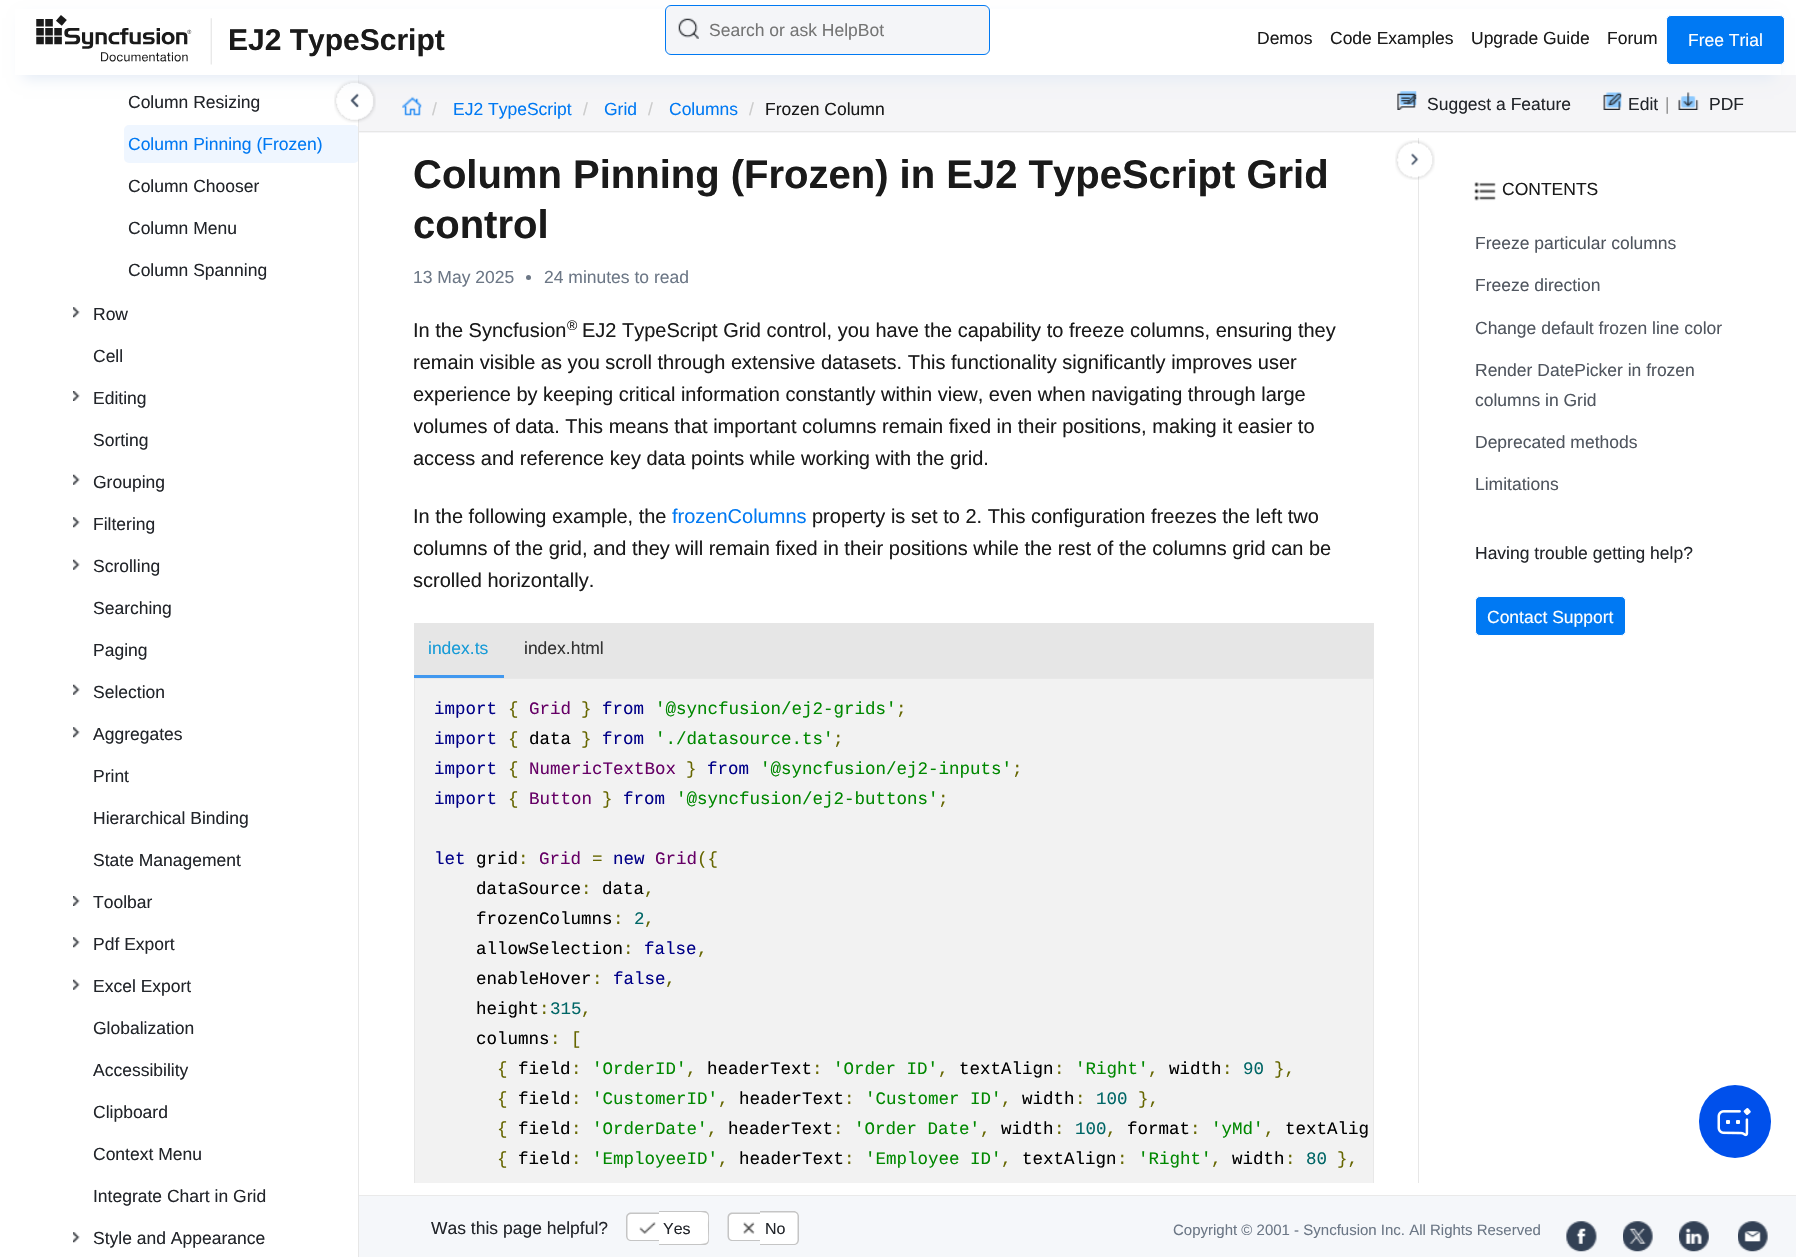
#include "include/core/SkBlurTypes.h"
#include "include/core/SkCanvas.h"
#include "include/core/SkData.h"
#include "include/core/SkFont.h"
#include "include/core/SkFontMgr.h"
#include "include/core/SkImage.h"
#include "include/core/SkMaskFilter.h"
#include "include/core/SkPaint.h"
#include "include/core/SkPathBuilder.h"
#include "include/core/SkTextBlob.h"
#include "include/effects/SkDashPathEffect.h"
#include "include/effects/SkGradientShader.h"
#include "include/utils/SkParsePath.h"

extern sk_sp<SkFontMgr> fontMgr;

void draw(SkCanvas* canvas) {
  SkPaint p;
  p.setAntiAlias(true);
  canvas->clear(SK_ColorWHITE);
  p.setColor(SkColorSetRGB(245, 245, 247));
  canvas->drawRect(SkRect::MakeLTRB(359, 75, 1796, 133), p);
  canvas->drawImageRect(SkImages::DeferredFromEncodedData(SkData::MakeFromFileName("images/3.png")), SkRect::MakeLTRB(402, 96, 422, 116), SkSamplingOptions());
  canvas->drawImageRect(SkImages::DeferredFromEncodedData(SkData::MakeFromFileName("images/4.png")), SkRect::MakeLTRB(1397, 91, 1417, 110), SkSamplingOptions());
  canvas->drawImageRect(SkImages::DeferredFromEncodedData(SkData::MakeFromFileName("images/5.png")), SkRect::MakeLTRB(1603, 92, 1622, 110), SkSamplingOptions());
  canvas->drawImageRect(SkImages::DeferredFromEncodedData(SkData::MakeFromFileName("images/6.png")), SkRect::MakeLTRB(1678, 92, 1699, 110), SkSamplingOptions());
  p.setColor(SkColorSetRGB(231, 231, 231));
  canvas->drawRect(SkRect::MakeLTRB(358, 75, 359, 1257), p);
  canvas->drawImageRect(SkImages::DeferredFromEncodedData(SkData::MakeFromFileName("images/10.png")), SkRect::MakeLTRB(334, 80, 376, 123), SkSamplingOptions());
  p.setColor(SkColorSetRGB(226, 234, 245));
  p.setMaskFilter(SkMaskFilter::MakeBlur(kNormal_SkBlurStyle, 7));
  canvas->drawRect(SkRect::MakeLTRB(23, 18, 1774, 78), p);
  p.setMaskFilter(nullptr);
  p.setColor(SK_ColorWHITE);
  canvas->drawRect(SkRect::MakeLTRB(15, 9, 1781, 75), p);
  canvas->drawImageRect(SkImages::DeferredFromEncodedData(SkData::MakeFromFileName("images/1.png")), SkRect::MakeLTRB(36, 15, 212, 65), SkSamplingOptions());
  p.setColor(SkColorSetRGB(244, 245, 248));
  canvas->drawRoundRect(SkRect::MakeLTRB(665, 5, 990, 55), 6, 6, p);
  canvas->drawImageRect(SkImages::DeferredFromEncodedData(SkData::MakeFromFileName("images/2.png")), SkRect::MakeLTRB(678, 18, 699, 39), SkSamplingOptions());
  p.setStyle(SkPaint::kStroke_Style);
  p.setStrokeWidth(1);
  p.setColor(SkColorSetRGB(0, 121, 243));
  canvas->drawRoundRect(SkRect::MakeLTRB(665.5f, 5.5f, 989.5f, 54.5f), 5.5f, 5.5f, p);
  p.setStyle(SkPaint::kFill_Style);
  canvas->drawRoundRect(SkRect::MakeLTRB(1666.5f, 15.5f, 1784.5f, 64.5f), 4.5f, 4.5f, p);
  p.setStyle(SkPaint::kStroke_Style);
  p.setColor(SK_ColorWHITE);
  canvas->drawRoundRect(SkRect::MakeLTRB(1666.5f, 15.5f, 1784.5f, 64.5f), 4.5f, 4.5f, p);
  p.setStyle(SkPaint::kFill_Style);
  p.setColor(SkColorSetRGB(231, 231, 231));
  canvas->drawRect(SkRect::MakeLTRB(359, 131, 1796, 132), p);
  canvas->save();
  canvas->clipRect(SkRect::MakeLTRB(0, 0, 358, 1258));
  p.setColor(SkColorSetRGB(239, 246, 255));
  canvas->drawRoundRect(SkRect::MakeLTRB(124, 125, 359, 163), 5, 5, p);
  canvas->restore();
  canvas->drawImageRect(SkImages::DeferredFromEncodedData(SkData::MakeFromFileName("images/7.png")), SkRect::MakeLTRB(73, 307, 80, 318), SkSamplingOptions());
  canvas->drawImageRect(SkImages::DeferredFromEncodedData(SkData::MakeFromFileName("images/8.png")), SkRect::MakeLTRB(73, 391, 80, 401), SkSamplingOptions());
  canvas->drawImageRect(SkImages::DeferredFromEncodedData(SkData::MakeFromFileName("images/9.png")), SkRect::MakeLTRB(73, 474, 80, 485), SkSamplingOptions());
  canvas->drawImageRect(SkImages::DeferredFromEncodedData(SkData::MakeFromFileName("images/7.png")), SkRect::MakeLTRB(73, 517, 80, 528), SkSamplingOptions());
  canvas->drawImageRect(SkImages::DeferredFromEncodedData(SkData::MakeFromFileName("images/9.png")), SkRect::MakeLTRB(73, 559, 80, 570), SkSamplingOptions());
  canvas->drawImageRect(SkImages::DeferredFromEncodedData(SkData::MakeFromFileName("images/9.png")), SkRect::MakeLTRB(73, 684, 80, 695), SkSamplingOptions());
  canvas->drawImageRect(SkImages::DeferredFromEncodedData(SkData::MakeFromFileName("images/7.png")), SkRect::MakeLTRB(73, 727, 80, 738), SkSamplingOptions());
  canvas->drawImageRect(SkImages::DeferredFromEncodedData(SkData::MakeFromFileName("images/8.png")), SkRect::MakeLTRB(73, 896, 80, 906), SkSamplingOptions());
  canvas->drawImageRect(SkImages::DeferredFromEncodedData(SkData::MakeFromFileName("images/7.png")), SkRect::MakeLTRB(73, 937, 80, 948), SkSamplingOptions());
  canvas->drawImageRect(SkImages::DeferredFromEncodedData(SkData::MakeFromFileName("images/9.png")), SkRect::MakeLTRB(73, 979, 80, 990), SkSamplingOptions());
  canvas->drawImageRect(SkImages::DeferredFromEncodedData(SkData::MakeFromFileName("images/7.png")), SkRect::MakeLTRB(73, 1232, 80, 1243), SkSamplingOptions());
  p.setColor(SkColorSetRGB(231, 231, 231));
  canvas->drawRect(SkRect::MakeLTRB(1418, 138, 1419, 1183), p);
  p.setColor(SkColorSetRGB(108, 119, 134));
  canvas->drawCircle(528.5f, 277.5f, 2.5f, p);
  p.setColor(SkColorSetRGB(230, 230, 230));
  canvas->drawRect(SkRect::MakeLTRB(504, 623, 1374, 678), p);
  canvas->drawRect(SkRect::MakeLTRB(414, 623, 504, 675), p);
  p.setColor(SkColorSetRGB(65, 152, 239));
  canvas->drawRect(SkRect::MakeLTRB(414, 675, 504, 678), p);
  p.setColor(SkColorSetRGB(242, 242, 242));
  canvas->drawRect(SkRect::MakeLTRB(415, 679, 1373, 1183), p);
  canvas->save();
  canvas->clipRect(SkRect::MakeLTRB(414, 138, 1418, 1183));
  p.setStyle(SkPaint::kStroke_Style);
  p.setColor(SkColorSetRGB(232, 232, 232));
  canvas->drawRect(SkRect::MakeLTRB(414.5f, 678.5f, 1373.5f, 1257.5f), p);
  canvas->restore();
  canvas->drawImageRect(SkImages::DeferredFromEncodedData(SkData::MakeFromFileName("images/11.png")), SkRect::MakeLTRB(1395, 140, 1435, 180), SkSamplingOptions());
  canvas->drawImageRect(SkImages::DeferredFromEncodedData(SkData::MakeFromFileName("images/12.png")), SkRect::MakeLTRB(1474, 182, 1496, 201), SkSamplingOptions());
  p.setStyle(SkPaint::kFill_Style);
  p.setColor(SkColorSetRGB(0, 121, 243));
  canvas->drawRoundRect(SkRect::MakeLTRB(1475.5f, 596.5f, 1625.5f, 635.5f), 4.5f, 4.5f, p);
  p.setStyle(SkPaint::kStroke_Style);
  p.setColor(SK_ColorWHITE);
  canvas->drawRoundRect(SkRect::MakeLTRB(1475.5f, 596.5f, 1625.5f, 635.5f), 4.5f, 4.5f, p);
  p.setStyle(SkPaint::kFill_Style);
  p.setColor(SkColorSetRGB(0, 80, 235));
  canvas->drawRoundRect(SkRect::MakeLTRB(1699, 1085, 1771, 1158), 36, 36, p);
  canvas->drawImageRect(SkImages::DeferredFromEncodedData(SkData::MakeFromFileName("images/13.png")), SkRect::MakeLTRB(1717, 1108, 1751, 1137), SkSamplingOptions());
  p.setColor(SkColorSetRGB(245, 247, 250));
  canvas->drawRect(SkRect::MakeLTRB(359, 1196, 1796, 1257), p);
  p.setColor(SkColorSetRGB(234, 234, 234));
  canvas->drawRect(SkRect::MakeLTRB(359, 1195, 1796, 1196), p);
  p.setColor(SK_ColorWHITE);
  canvas->drawPath(SkPathBuilder().moveTo(631, 1213).lineTo(659, 1213).lineTo(659, 1241).lineTo(631, 1241).cubicTo(628, 1241, 626, 1239, 626, 1236).lineTo(626, 1218).cubicTo(626, 1215, 628, 1213, 631, 1213).close().detach(), p);
  p.setColor(SkColorSetRGB(197, 197, 197));
  canvas->drawPath(SkPathBuilder(SkPathFillType::kEvenOdd).moveTo(631, 1212.5f).lineTo(659, 1212.5f).lineTo(659, 1241).lineTo(631, 1241).cubicTo(628.5f, 1241, 626, 1239, 626, 1236).lineTo(626, 1217.5f).cubicTo(626, 1214.5f, 628.5f, 1212.5f, 631, 1212.5f).close().moveTo(631, 1214).lineTo(659, 1214).lineTo(659, 1240).lineTo(631, 1240).cubicTo(629, 1240, 627.5f, 1238.5f, 627.5f, 1236).lineTo(627.5f, 1217.5f).cubicTo(627.5f, 1215.5f, 629, 1214, 631, 1214).close().detach(), p);
  p.setColor(SK_ColorWHITE);
  canvas->drawPath(SkPathBuilder().moveTo(659, 1211).lineTo(704, 1211).cubicTo(707, 1211, 709, 1213, 709, 1216).lineTo(709, 1240).cubicTo(709, 1243, 707, 1245, 704, 1245).lineTo(659, 1245).close().detach(), p);
  p.setColor(SkColorSetRGB(197, 197, 197));
  canvas->drawPath(SkPathBuilder(SkPathFillType::kEvenOdd).moveTo(659, 1211).lineTo(704, 1211).cubicTo(707, 1211, 709, 1213, 709, 1216).lineTo(709, 1240).cubicTo(709, 1243, 707, 1245, 704, 1245).lineTo(659, 1245).close().moveTo(659, 1212).lineTo(696, 1212).cubicTo(711, 1212, 708, 1213, 708, 1228).cubicTo(708, 1243, 711, 1244, 696, 1244).lineTo(659, 1244).close().detach(), p);
  canvas->drawImageRect(SkImages::DeferredFromEncodedData(SkData::MakeFromFileName("images/14.png")), SkRect::MakeLTRB(639, 1222, 656, 1234), SkSamplingOptions());
  p.setColor(SK_ColorWHITE);
  canvas->drawPath(SkPathBuilder().moveTo(733, 1213).lineTo(760, 1213).lineTo(760, 1241).lineTo(733, 1241).cubicTo(730, 1241, 728, 1239, 728, 1236).lineTo(728, 1218).cubicTo(728, 1215, 730, 1213, 733, 1213).close().detach(), p);
  p.setColor(SkColorSetRGB(197, 197, 197));
  canvas->drawPath(SkPathBuilder(SkPathFillType::kEvenOdd).moveTo(732.5f, 1212.5f).lineTo(760, 1212.5f).lineTo(760, 1241).lineTo(732.5f, 1241).cubicTo(729.5f, 1241, 727.5f, 1239, 727.5f, 1236).lineTo(727.5f, 1217.5f).cubicTo(727.5f, 1214.5f, 729.5f, 1212.5f, 732.5f, 1212.5f).close().moveTo(732.5f, 1214).lineTo(760, 1214).lineTo(760, 1240).lineTo(732.5f, 1240).cubicTo(730.5f, 1240, 729, 1238.5f, 729, 1236).lineTo(729, 1217.5f).cubicTo(729, 1215.5f, 730.5f, 1214, 732.5f, 1214).close().detach(), p);
  p.setColor(SK_ColorWHITE);
  canvas->drawPath(SkPathBuilder().moveTo(760, 1211).lineTo(794, 1211).cubicTo(797, 1211, 799, 1213, 799, 1216).lineTo(799, 1240).cubicTo(799, 1243, 797, 1245, 794, 1245).lineTo(760, 1245).close().detach(), p);
  p.setColor(SkColorSetRGB(197, 197, 197));
  canvas->drawPath(SkPathBuilder(SkPathFillType::kEvenOdd).moveTo(760, 1211).lineTo(794, 1211).cubicTo(796.5f, 1211, 799, 1213.5f, 799, 1216).lineTo(799, 1240).cubicTo(799, 1243, 796.5f, 1245, 794, 1245).lineTo(760, 1245).close().moveTo(760, 1212.5f).lineTo(794, 1212.5f).cubicTo(796, 1212.5f, 797.5f, 1214, 797.5f, 1216).lineTo(797.5f, 1240).cubicTo(797.5f, 1242, 796, 1244, 794, 1244).lineTo(760, 1244).close().detach(), p);
  canvas->drawImageRect(SkImages::DeferredFromEncodedData(SkData::MakeFromFileName("images/15.png")), SkRect::MakeLTRB(743, 1222, 755, 1234), SkSamplingOptions());
  canvas->drawImageRect(SkImages::DeferredFromEncodedData(SkData::MakeFromFileName("images/16.png")), SkRect::MakeLTRB(1566, 1221, 1597, 1252), SkSamplingOptions());
  canvas->drawImageRect(SkImages::DeferredFromEncodedData(SkData::MakeFromFileName("images/17.png")), SkRect::MakeLTRB(1623, 1221, 1653, 1252), SkSamplingOptions());
  canvas->drawImageRect(SkImages::DeferredFromEncodedData(SkData::MakeFromFileName("images/18.png")), SkRect::MakeLTRB(1679, 1221, 1709, 1252), SkSamplingOptions());
  canvas->drawImageRect(SkImages::DeferredFromEncodedData(SkData::MakeFromFileName("images/19.png")), SkRect::MakeLTRB(1738, 1221, 1768, 1252), SkSamplingOptions());
  SkFont font1(fontMgr->matchFamilyStyle("Liberation Sans", SkFontStyle::Bold()), 30);
  font1.setSubpixel(true);
  p.setColor(SkColorSetRGB(26, 26, 26));
  canvas->drawString("EJ2 TypeScript", 228, 50, font1, p);
  SkFont font2(fontMgr->matchFamilyStyle("Liberation Sans", SkFontStyle::Normal()), 17.5f);
  font2.setSubpixel(true);
  p.setColor(SkColorSetRGB(117, 117, 117));
  canvas->drawString("Search or ask HelpBot", 709, 36, font2, p);
  p.setColor(SkColorSetRGB(26, 26, 26));
  canvas->drawString("Demos", 1257, 44, font2, p);
  canvas->drawString("Code Examples", 1330, 44, font2, p);
  canvas->drawString("Upgrade Guide", 1471, 44, font2, p);
  canvas->drawString("Forum", 1607, 44, font2, p);
  p.setColor(SK_ColorWHITE);
  canvas->drawString("Free Trial", 1688, 46, font2, p);
  p.setColor(SkColorSetRGB(204, 204, 204));
  canvas->drawString("/", 432, 115, font2, p);
  p.setColor(SkColorSetRGB(0, 121, 243));
  canvas->drawString("EJ2 TypeScript", 453, 115, font2, p);
  p.setColor(SkColorSetRGB(204, 204, 204));
  canvas->drawString("/", 583, 115, font2, p);
  p.setColor(SkColorSetRGB(0, 121, 243));
  canvas->drawString("Grid", 604, 115, font2, p);
  p.setColor(SkColorSetRGB(204, 204, 204));
  canvas->drawString("/", 648, 115, font2, p);
  p.setColor(SkColorSetRGB(0, 121, 243));
  canvas->drawString("Columns", 669, 115, font2, p);
  p.setColor(SkColorSetRGB(204, 204, 204));
  canvas->drawString("/", 749, 115, font2, p);
  p.setColor(SkColorSetRGB(26, 26, 26));
  canvas->drawString("Frozen Column", 765, 115, font2, p);
  p.setColor(SkColorSetRGB(34, 37, 42));
  canvas->drawString("Suggest a Feature", 1427, 110, font2, p);
  canvas->drawString("Edit", 1628, 110, font2, p);
  p.setColor(SkColorSetRGB(151, 151, 151));
  canvas->drawString("|", 1665, 110, font2, p);
  p.setColor(SkColorSetRGB(34, 37, 42));
  canvas->drawString("PDF", 1709, 110, font2, p);
  canvas->drawString("Column Resizing", 128, 108, font2, p);
  p.setColor(SkColorSetRGB(0, 121, 243));
  canvas->drawString("Column Pinning (Frozen)", 128, 150, font2, p);
  p.setColor(SkColorSetRGB(34, 37, 42));
  canvas->drawString("Column Chooser", 128, 192, font2, p);
  canvas->drawString("Column Menu", 128, 234, font2, p);
  canvas->drawString("Column Spanning", 128, 276, font2, p);
  canvas->drawString("Row", 93, 320, font2, p);
  canvas->drawString("Cell", 93, 362, font2, p);
  canvas->drawString("Editing", 93, 404, font2, p);
  canvas->drawString("Sorting", 93, 446, font2, p);
  canvas->drawString("Grouping", 93, 488, font2, p);
  canvas->drawString("Filtering", 93, 530, font2, p);
  canvas->drawString("Scrolling", 93, 572, font2, p);
  canvas->drawString("Searching", 93, 614, font2, p);
  canvas->drawString("Paging", 93, 656, font2, p);
  canvas->drawString("Selection", 93, 698, font2, p);
  canvas->drawString("Aggregates", 93, 740, font2, p);
  canvas->drawString("Print", 93, 782, font2, p);
  canvas->drawString("Hierarchical Binding", 93, 824, font2, p);
  canvas->drawString("State Management", 93, 866, font2, p);
  canvas->drawString("Toolbar", 93, 908, font2, p);
  canvas->drawString("Pdf Export", 93, 950, font2, p);
  canvas->drawString("Excel Export", 93, 992, font2, p);
  canvas->drawString("Globalization", 93, 1034, font2, p);
  canvas->drawString("Accessibility", 93, 1076, font2, p);
  canvas->drawString("Clipboard", 93, 1118, font2, p);
  canvas->drawString("Context Menu", 93, 1160, font2, p);
  canvas->drawString("Integrate Chart in Grid", 93, 1202, font2, p);
  canvas->drawString("Style and Appearance", 93, 1244, font2, p);
  SkFont font3(fontMgr->matchFamilyStyle("Liberation Sans", SkFontStyle::Bold()), 40);
  font3.setSubpixel(true);
  p.setColor(SkColorSetRGB(26, 26, 26));
  canvas->drawString("Column Pinning (Frozen) in EJ2 TypeScript Grid", 413, 188, font3, p);
  canvas->drawString("control", 413, 238, font3, p);
  p.setColor(SkColorSetRGB(108, 119, 134));
  canvas->drawString("13 May 2025", 413, 283, font2, p);
  canvas->drawString("24 minutes to read", 544, 283, font2, p);
  SkFont font4(fontMgr->matchFamilyStyle("Liberation Sans", SkFontStyle::Normal()), 20);
  font4.setSubpixel(true);
  p.setColor(SkColorSetRGB(26, 26, 26));
  canvas->drawString("In the Syncfusion", 413, 337, font4, p);
  SkFont font5(fontMgr->matchFamilyStyle("Liberation Sans", SkFontStyle::Normal()), 14);
  font5.setSubpixel(true);
  canvas->drawString("®", 567, 330, font5, p);
  canvas->drawString("EJ2 TypeScript Grid control, you have the capability to freeze columns, ensuring they", 582, 337, font4, p);
  canvas->drawString("remain visible as you scroll through extensive datasets. This functionality significantly improves user", 413, 369, font4, p);
  canvas->drawString("experience by keeping critical information constantly within view, even when navigating through large", 413, 401, font4, p);
  canvas->save();
  canvas->clipRect(SkRect::MakeLTRB(414, 138, 1418, 1183));
  canvas->drawString("volumes of data. This means that important columns remain fixed in their positions, making it easier to", 413, 433, font4, p);
  canvas->restore();
  canvas->drawString("access and reference key data points while working with the grid.", 413, 465, font4, p);
  canvas->drawString("In the following example, the", 413, 523, font4, p);
  p.setColor(SkColorSetRGB(0, 121, 243));
  canvas->drawString("frozenColumns", 672, 523, font4, p);
  p.setColor(SkColorSetRGB(26, 26, 26));
  canvas->drawString("property is set to 2. This configuration freezes the left two", 812, 523, font4, p);
  canvas->drawString("columns of the grid, and they will remain fixed in their positions while the rest of the columns grid can be", 413, 555, font4, p);
  canvas->drawString("scrolled horizontally.", 413, 587, font4, p);
  p.setColor(SkColorSetRGB(23, 155, 215));
  canvas->drawString("index.ts", 428, 654, font2, p);
  p.setColor(SkColorSetRGB(51, 51, 51));
  canvas->drawString("index.html", 524, 654, font2, p);
  SkFont font6(fontMgr->matchFamilyStyle("Liberation Mono", SkFontStyle::Normal()), 17.5f);
  font6.setSubpixel(true);
  p.setColor(SkColorSetRGB(0, 0, 136));
  canvas->drawString("import", 434, 714, font6, p);
  p.setColor(SkColorSetRGB(102, 102, 0));
  canvas->drawString("{", 508, 714, font6, p);
  p.setColor(SkColorSetRGB(102, 0, 102));
  canvas->drawString("Grid", 529, 714, font6, p);
  p.setColor(SkColorSetRGB(102, 102, 0));
  canvas->drawString("}", 581, 714, font6, p);
  p.setColor(SkColorSetRGB(0, 0, 136));
  canvas->drawString("from", 602, 714, font6, p);
  p.setColor(SkColorSetRGB(0, 136, 0));
  canvas->drawString("'@syncfusion/ej2-grids'", 655, 714, font6, p);
  p.setColor(SkColorSetRGB(102, 102, 0));
  canvas->drawString(";", 896, 714, font6, p);
  p.setColor(SkColorSetRGB(0, 0, 136));
  canvas->drawString("import", 434, 744, font6, p);
  p.setColor(SkColorSetRGB(102, 102, 0));
  canvas->drawString("{", 508, 744, font6, p);
  p.setColor(SK_ColorBLACK);
  canvas->drawString("data", 529, 744, font6, p);
  p.setColor(SkColorSetRGB(102, 102, 0));
  canvas->drawString("}", 581, 744, font6, p);
  p.setColor(SkColorSetRGB(0, 0, 136));
  canvas->drawString("from", 602, 744, font6, p);
  p.setColor(SkColorSetRGB(0, 136, 0));
  canvas->drawString("'./datasource.ts'", 655, 744, font6, p);
  p.setColor(SkColorSetRGB(102, 102, 0));
  canvas->drawString(";", 833, 744, font6, p);
  p.setColor(SkColorSetRGB(0, 0, 136));
  canvas->drawString("import", 434, 774, font6, p);
  p.setColor(SkColorSetRGB(102, 102, 0));
  canvas->drawString("{", 508, 774, font6, p);
  p.setColor(SkColorSetRGB(102, 0, 102));
  canvas->drawString("NumericTextBox", 529, 774, font6, p);
  p.setColor(SkColorSetRGB(102, 102, 0));
  canvas->drawString("}", 686, 774, font6, p);
  p.setColor(SkColorSetRGB(0, 0, 136));
  canvas->drawString("from", 707, 774, font6, p);
  p.setColor(SkColorSetRGB(0, 136, 0));
  canvas->drawString("'@syncfusion/ej2-inputs'", 760, 774, font6, p);
  p.setColor(SkColorSetRGB(102, 102, 0));
  canvas->drawString(";", 1012, 774, font6, p);
  p.setColor(SkColorSetRGB(0, 0, 136));
  canvas->drawString("import", 434, 804, font6, p);
  p.setColor(SkColorSetRGB(102, 102, 0));
  canvas->drawString("{", 508, 804, font6, p);
  p.setColor(SkColorSetRGB(102, 0, 102));
  canvas->drawString("Button", 529, 804, font6, p);
  p.setColor(SkColorSetRGB(102, 102, 0));
  canvas->drawString("}", 602, 804, font6, p);
  p.setColor(SkColorSetRGB(0, 0, 136));
  canvas->drawString("from", 623, 804, font6, p);
  p.setColor(SkColorSetRGB(0, 136, 0));
  canvas->drawString("'@syncfusion/ej2-buttons'", 676, 804, font6, p);
  p.setColor(SkColorSetRGB(102, 102, 0));
  canvas->drawString(";", 938, 804, font6, p);
  p.setColor(SkColorSetRGB(0, 0, 136));
  canvas->drawString("let", 434, 864, font6, p);
  p.setColor(SK_ColorBLACK);
  canvas->drawString("grid", 476, 864, font6, p);
  p.setColor(SkColorSetRGB(102, 102, 0));
  canvas->drawString(":", 518, 864, font6, p);
  p.setColor(SkColorSetRGB(102, 0, 102));
  canvas->drawString("Grid", 539, 864, font6, p);
  p.setColor(SkColorSetRGB(102, 102, 0));
  canvas->drawString("=", 592, 864, font6, p);
  p.setColor(SkColorSetRGB(0, 0, 136));
  canvas->drawString("new", 613, 864, font6, p);
  p.setColor(SkColorSetRGB(102, 0, 102));
  canvas->drawString("Grid", 655, 864, font6, p);
  p.setColor(SkColorSetRGB(102, 102, 0));
  canvas->drawString("({", 697, 864, font6, p);
  p.setColor(SK_ColorBLACK);
  canvas->drawString("dataSource", 476, 894, font6, p);
  p.setColor(SkColorSetRGB(102, 102, 0));
  canvas->drawString(":", 581, 894, font6, p);
  p.setColor(SK_ColorBLACK);
  canvas->drawString("data", 602, 894, font6, p);
  p.setColor(SkColorSetRGB(102, 102, 0));
  canvas->drawString(",", 644, 894, font6, p);
  p.setColor(SK_ColorBLACK);
  canvas->drawString("frozenColumns", 476, 924, font6, p);
  p.setColor(SkColorSetRGB(102, 102, 0));
  canvas->drawString(":", 613, 924, font6, p);
  p.setColor(SkColorSetRGB(0, 102, 102));
  canvas->drawString("2", 634, 924, font6, p);
  p.setColor(SkColorSetRGB(102, 102, 0));
  canvas->drawString(",", 644, 924, font6, p);
  p.setColor(SK_ColorBLACK);
  canvas->drawString("allowSelection", 476, 954, font6, p);
  p.setColor(SkColorSetRGB(102, 102, 0));
  canvas->drawString(":", 623, 954, font6, p);
  p.setColor(SkColorSetRGB(0, 0, 136));
  canvas->drawString("false", 644, 954, font6, p);
  p.setColor(SkColorSetRGB(102, 102, 0));
  canvas->drawString(",", 697, 954, font6, p);
  p.setColor(SK_ColorBLACK);
  canvas->drawString("enableHover", 476, 984, font6, p);
  p.setColor(SkColorSetRGB(102, 102, 0));
  canvas->drawString(":", 592, 984, font6, p);
  p.setColor(SkColorSetRGB(0, 0, 136));
  canvas->drawString("false", 613, 984, font6, p);
  p.setColor(SkColorSetRGB(102, 102, 0));
  canvas->drawString(",", 665, 984, font6, p);
  p.setColor(SK_ColorBLACK);
  canvas->drawString("height", 476, 1014, font6, p);
  p.setColor(SkColorSetRGB(102, 102, 0));
  canvas->drawString(":", 539, 1014, font6, p);
  p.setColor(SkColorSetRGB(0, 102, 102));
  canvas->drawString("315", 550, 1014, font6, p);
  p.setColor(SkColorSetRGB(102, 102, 0));
  canvas->drawString(",", 581, 1014, font6, p);
  p.setColor(SK_ColorBLACK);
  canvas->drawString("columns", 476, 1044, font6, p);
  p.setColor(SkColorSetRGB(102, 102, 0));
  canvas->drawString(": [", 550, 1044, font6, p);
  canvas->drawString("{", 497, 1074, font6, p);
  p.setColor(SK_ColorBLACK);
  canvas->drawString("field", 518, 1074, font6, p);
  p.setColor(SkColorSetRGB(102, 102, 0));
  canvas->drawString(":", 571, 1074, font6, p);
  p.setColor(SkColorSetRGB(0, 136, 0));
  canvas->drawString("'OrderID'", 592, 1074, font6, p);
  p.setColor(SkColorSetRGB(102, 102, 0));
  canvas->drawString(",", 686, 1074, font6, p);
  p.setColor(SK_ColorBLACK);
  canvas->drawString("headerText", 707, 1074, font6, p);
  p.setColor(SkColorSetRGB(102, 102, 0));
  canvas->drawString(":", 812, 1074, font6, p);
  p.setColor(SkColorSetRGB(0, 136, 0));
  canvas->drawString("'Order ID'", 833, 1074, font6, p);
  p.setColor(SkColorSetRGB(102, 102, 0));
  canvas->drawString(",", 938, 1074, font6, p);
  p.setColor(SK_ColorBLACK);
  canvas->drawString("textAlign", 959, 1074, font6, p);
  p.setColor(SkColorSetRGB(102, 102, 0));
  canvas->drawString(":", 1054, 1074, font6, p);
  p.setColor(SkColorSetRGB(0, 136, 0));
  canvas->drawString("'Right'", 1075, 1074, font6, p);
  p.setColor(SkColorSetRGB(102, 102, 0));
  canvas->drawString(",", 1148, 1074, font6, p);
  p.setColor(SK_ColorBLACK);
  canvas->drawString("width", 1169, 1074, font6, p);
  p.setColor(SkColorSetRGB(102, 102, 0));
  canvas->drawString(":", 1222, 1074, font6, p);
  p.setColor(SkColorSetRGB(0, 102, 102));
  canvas->drawString("90", 1243, 1074, font6, p);
  p.setColor(SkColorSetRGB(102, 102, 0));
  canvas->drawString("},", 1274, 1074, font6, p);
  canvas->drawString("{", 497, 1104, font6, p);
  p.setColor(SK_ColorBLACK);
  canvas->drawString("field", 518, 1104, font6, p);
  p.setColor(SkColorSetRGB(102, 102, 0));
  canvas->drawString(":", 571, 1104, font6, p);
  p.setColor(SkColorSetRGB(0, 136, 0));
  canvas->drawString("'CustomerID'", 592, 1104, font6, p);
  p.setColor(SkColorSetRGB(102, 102, 0));
  canvas->drawString(",", 718, 1104, font6, p);
  p.setColor(SK_ColorBLACK);
  canvas->drawString("headerText", 739, 1104, font6, p);
  p.setColor(SkColorSetRGB(102, 102, 0));
  canvas->drawString(":", 844, 1104, font6, p);
  p.setColor(SkColorSetRGB(0, 136, 0));
  canvas->drawString("'Customer ID'", 865, 1104, font6, p);
  p.setColor(SkColorSetRGB(102, 102, 0));
  canvas->drawString(",", 1001, 1104, font6, p);
  p.setColor(SK_ColorBLACK);
  canvas->drawString("width", 1022, 1104, font6, p);
  p.setColor(SkColorSetRGB(102, 102, 0));
  canvas->drawString(":", 1075, 1104, font6, p);
  p.setColor(SkColorSetRGB(0, 102, 102));
  canvas->drawString("100", 1096, 1104, font6, p);
  p.setColor(SkColorSetRGB(102, 102, 0));
  canvas->drawString("},", 1138, 1104, font6, p);
  canvas->drawString("{", 497, 1134, font6, p);
  p.setColor(SK_ColorBLACK);
  canvas->drawString("field", 518, 1134, font6, p);
  p.setColor(SkColorSetRGB(102, 102, 0));
  canvas->drawString(":", 571, 1134, font6, p);
  p.setColor(SkColorSetRGB(0, 136, 0));
  canvas->drawString("'OrderDate'", 592, 1134, font6, p);
  p.setColor(SkColorSetRGB(102, 102, 0));
  canvas->drawString(",", 707, 1134, font6, p);
  p.setColor(SK_ColorBLACK);
  canvas->drawString("headerText", 728, 1134, font6, p);
  p.setColor(SkColorSetRGB(102, 102, 0));
  canvas->drawString(":", 833, 1134, font6, p);
  p.setColor(SkColorSetRGB(0, 136, 0));
  canvas->drawString("'Order Date'", 854, 1134, font6, p);
  p.setColor(SkColorSetRGB(102, 102, 0));
  canvas->drawString(",", 980, 1134, font6, p);
  p.setColor(SK_ColorBLACK);
  canvas->drawString("width", 1001, 1134, font6, p);
  p.setColor(SkColorSetRGB(102, 102, 0));
  canvas->drawString(":", 1054, 1134, font6, p);
  p.setColor(SkColorSetRGB(0, 102, 102));
  canvas->drawString("100", 1075, 1134, font6, p);
  p.setColor(SkColorSetRGB(102, 102, 0));
  canvas->drawString(",", 1106, 1134, font6, p);
  p.setColor(SK_ColorBLACK);
  canvas->drawString("format", 1127, 1134, font6, p);
  p.setColor(SkColorSetRGB(102, 102, 0));
  canvas->drawString(":", 1190, 1134, font6, p);
  p.setColor(SkColorSetRGB(0, 136, 0));
  canvas->drawString("'yMd'", 1211, 1134, font6, p);
  p.setColor(SkColorSetRGB(102, 102, 0));
  canvas->drawString(",", 1264, 1134, font6, p);
  p.setColor(SK_ColorBLACK);
  canvas->drawString("textAlig", 1285, 1134, font6, p);
  p.setColor(SkColorSetRGB(102, 102, 0));
  canvas->drawString("{", 497, 1164, font6, p);
  p.setColor(SK_ColorBLACK);
  canvas->drawString("field", 518, 1164, font6, p);
  p.setColor(SkColorSetRGB(102, 102, 0));
  canvas->drawString(":", 571, 1164, font6, p);
  p.setColor(SkColorSetRGB(0, 136, 0));
  canvas->drawString("'EmployeeID'", 592, 1164, font6, p);
  p.setColor(SkColorSetRGB(102, 102, 0));
  canvas->drawString(",", 718, 1164, font6, p);
  p.setColor(SK_ColorBLACK);
  canvas->drawString("headerText", 739, 1164, font6, p);
  p.setColor(SkColorSetRGB(102, 102, 0));
  canvas->drawString(":", 844, 1164, font6, p);
  p.setColor(SkColorSetRGB(0, 136, 0));
  canvas->drawString("'Employee ID'", 865, 1164, font6, p);
  p.setColor(SkColorSetRGB(102, 102, 0));
  canvas->drawString(",", 1001, 1164, font6, p);
  p.setColor(SK_ColorBLACK);
  canvas->drawString("textAlign", 1022, 1164, font6, p);
  p.setColor(SkColorSetRGB(102, 102, 0));
  canvas->drawString(":", 1117, 1164, font6, p);
  p.setColor(SkColorSetRGB(0, 136, 0));
  canvas->drawString("'Right'", 1138, 1164, font6, p);
  p.setColor(SkColorSetRGB(102, 102, 0));
  canvas->drawString(",", 1211, 1164, font6, p);
  p.setColor(SK_ColorBLACK);
  canvas->drawString("width", 1232, 1164, font6, p);
  p.setColor(SkColorSetRGB(102, 102, 0));
  canvas->drawString(":", 1285, 1164, font6, p);
  p.setColor(SkColorSetRGB(0, 102, 102));
  canvas->drawString("80", 1306, 1164, font6, p);
  p.setColor(SkColorSetRGB(102, 102, 0));
  canvas->drawString("},", 1337, 1164, font6, p);
  p.setColor(SkColorSetRGB(26, 26, 26));
  canvas->drawString("CONTENTS", 1502, 195, font2, p);
  p.setColor(SkColorSetRGB(80, 86, 95));
  canvas->drawString("Freeze particular columns", 1475, 249, font2, p);
  canvas->drawString("Freeze direction", 1475, 291, font2, p);
  canvas->drawString("Change default frozen line color", 1475, 334, font2, p);
  canvas->drawString("Render DatePicker in frozen", 1475, 376, font2, p);
  canvas->drawString("columns in Grid", 1475, 406, font2, p);
  canvas->drawString("Deprecated methods", 1475, 448, font2, p);
  canvas->drawString("Limitations", 1475, 490, font2, p);
  p.setColor(SkColorSetRGB(34, 37, 42));
  canvas->drawString("Having trouble getting help?", 1475, 559, font2, p);
  p.setColor(SK_ColorWHITE);
  canvas->drawString("Contact Support", 1487, 623, font2, p);
  p.setColor(SkColorSetRGB(34, 37, 42));
  canvas->drawString("Was this page helpful?", 431, 1234, font2, p);
  SkFont font7(fontMgr->matchFamilyStyle("Liberation Sans", SkFontStyle::Normal()), 16);
  font7.setSubpixel(true);
  canvas->drawString("Yes", 663, 1234, font7, p);
  canvas->drawString("No", 765, 1234, font7, p);
  SkFont font8(fontMgr->matchFamilyStyle("Liberation Sans", SkFontStyle::Normal()), 15);
  font8.setSubpixel(true);
  p.setColor(SkColorSetRGB(108, 119, 134));
  canvas->drawString("Copyright © 2001 - Syncfusion Inc. All Rights Reserved", 1173, 1235, font8, p);
}
